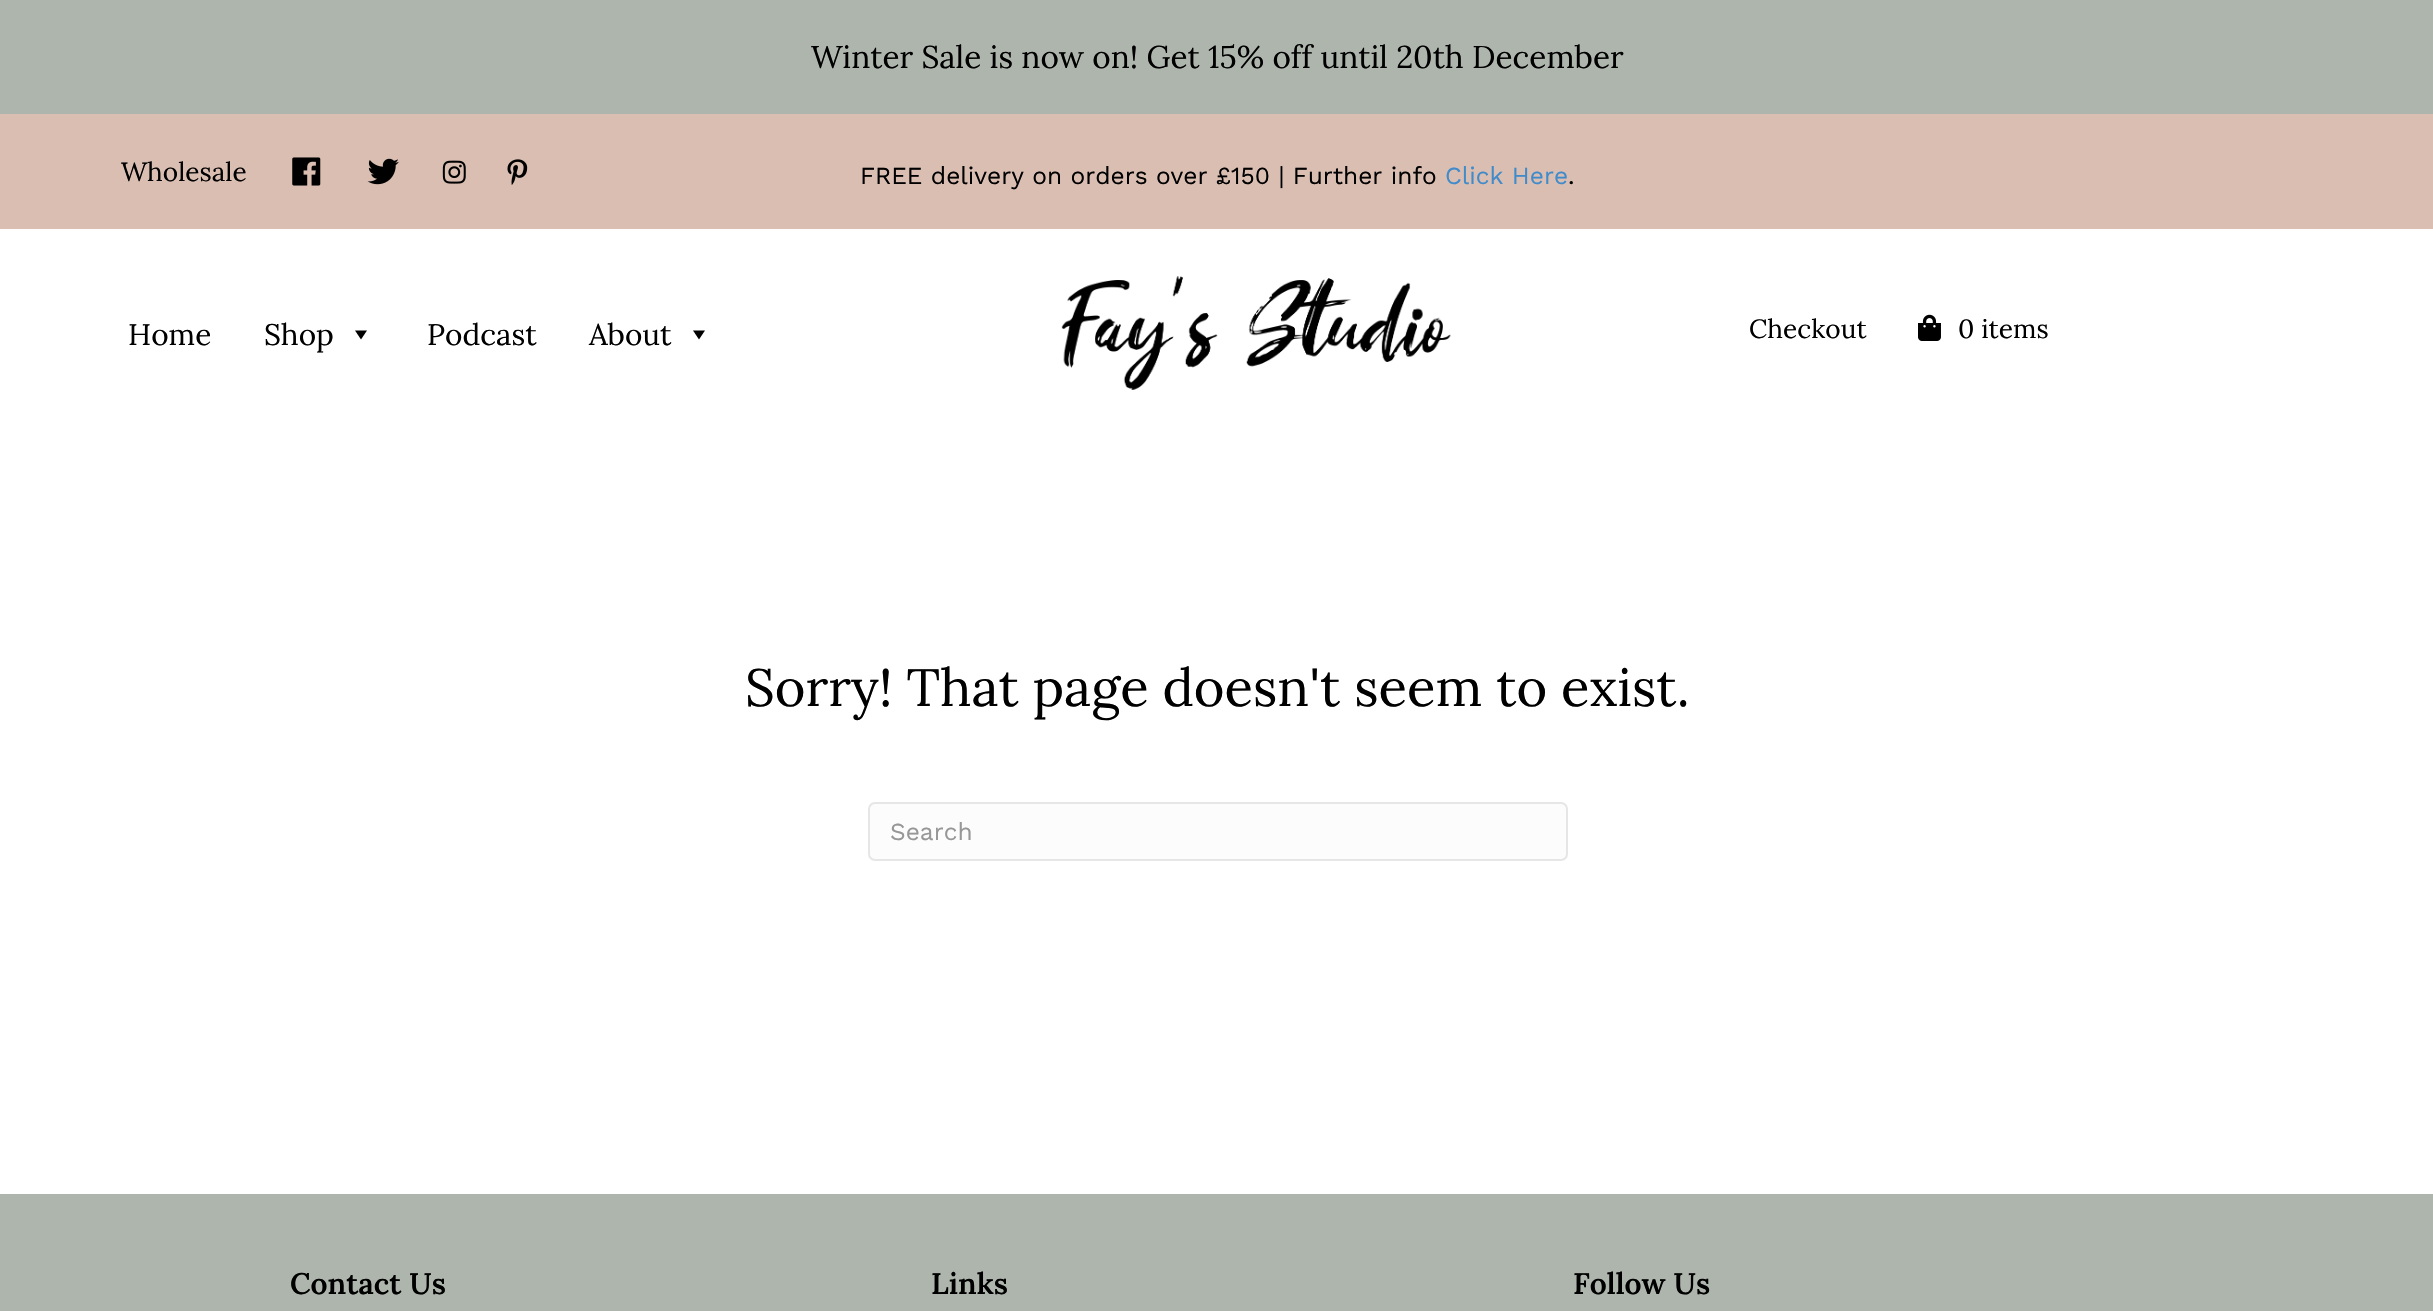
#include "include/core/SkBlurTypes.h"
#include "include/core/SkCanvas.h"
#include "include/core/SkData.h"
#include "include/core/SkFont.h"
#include "include/core/SkFontMgr.h"
#include "include/core/SkImage.h"
#include "include/core/SkMaskFilter.h"
#include "include/core/SkPaint.h"
#include "include/core/SkPathBuilder.h"
#include "include/core/SkTextBlob.h"
#include "include/effects/SkDashPathEffect.h"
#include "include/effects/SkGradientShader.h"
#include "include/utils/SkParsePath.h"

extern sk_sp<SkFontMgr> fontMgr;

void draw(SkCanvas* canvas) {
  SkPaint p;
  p.setAntiAlias(true);
  canvas->clear(SK_ColorWHITE);
  p.setColor(SkColorSetRGB(174, 181, 173));
  canvas->drawRect(SkRect::MakeLTRB(0, 0, 2433, 114), p);
  p.setColor(SkColorSetRGB(218, 190, 178));
  canvas->drawRect(SkRect::MakeLTRB(0, 114, 2433, 229), p);
  canvas->drawImageRect(SkImages::DeferredFromEncodedData(SkData::MakeFromFileName("images/1.png")), SkRect::MakeLTRB(292, 157, 321, 186), SkSamplingOptions());
  canvas->drawImageRect(SkImages::DeferredFromEncodedData(SkData::MakeFromFileName("images/2.png")), SkRect::MakeLTRB(367, 158, 399, 185), SkSamplingOptions());
  canvas->drawImageRect(SkImages::DeferredFromEncodedData(SkData::MakeFromFileName("images/3.png")), SkRect::MakeLTRB(442, 160, 466, 184), SkSamplingOptions());
  canvas->drawImageRect(SkImages::DeferredFromEncodedData(SkData::MakeFromFileName("images/4.png")), SkRect::MakeLTRB(507, 159, 528, 185), SkSamplingOptions());
  p.setColor(SK_ColorBLACK);
  canvas->drawPath(SkPathBuilder().moveTo(367, 330.5f).lineTo(361, 339.5f).lineTo(355, 330.5f).close().detach(), p);
  canvas->drawPath(SkPathBuilder().moveTo(705, 330.5f).lineTo(699, 339.5f).lineTo(693, 330.5f).close().detach(), p);
  canvas->drawImageRect(SkImages::DeferredFromEncodedData(SkData::MakeFromFileName("images/5.png")), SkRect::MakeLTRB(1061, 276, 1451, 390), SkSamplingOptions());
  canvas->drawImageRect(SkImages::DeferredFromEncodedData(SkData::MakeFromFileName("images/6.png")), SkRect::MakeLTRB(1918, 314, 1941, 341), SkSamplingOptions());
  p.setColor(SkColorSetRGB(252, 252, 252));
  canvas->drawRoundRect(SkRect::MakeLTRB(869, 803, 1567, 860), 6, 6, p);
  p.setStyle(SkPaint::kStroke_Style);
  p.setStrokeWidth(2);
  p.setColor(SkColorSetRGB(230, 230, 230));
  canvas->drawRoundRect(SkRect::MakeLTRB(869, 803, 1567, 860), 6, 6, p);
  p.setStyle(SkPaint::kFill_Style);
  p.setColor(SkColorSetRGB(174, 181, 173));
  canvas->drawRect(SkRect::MakeLTRB(0, 1194, 2433, 1311), p);
  SkFont font1(fontMgr->matchFamilyStyle("Lora", SkFontStyle::Normal()), 31.5f);
  font1.setSubpixel(true);
  p.setColor(SK_ColorBLACK);
  canvas->drawString("Winter Sale is now on! Get 15% off until 20th December", 811, 68, font1, p);
  SkFont font2(fontMgr->matchFamilyStyle("Lora", SkFontStyle::Normal()), 26.25f);
  font2.setSubpixel(true);
  canvas->drawString("Wholesale", 121, 181, font2, p);
  SkFont font3(fontMgr->matchFamilyStyle("Work Sans", SkFontStyle::Normal()), 24.5f);
  font3.setSubpixel(true);
  canvas->drawString("FREE delivery on orders over £150 | Further info", 860, 184, font3, p);
  p.setColor(SkColorSetRGB(66, 139, 202));
  canvas->drawString("Click Here", 1445, 184, font3, p);
  p.setColor(SK_ColorBLACK);
  canvas->drawString(".", 1568, 184, font3, p);
  SkFont font4(fontMgr->matchFamilyStyle("Lora", SkFontStyle::Normal()), 29.75f);
  font4.setSubpixel(true);
  canvas->drawString("Home", 128, 345, font4, p);
  canvas->drawString("Shop", 264, 345, font4, p);
  canvas->drawString("Podcast", 427, 345, font4, p);
  canvas->drawString("About", 589, 345, font4, p);
  canvas->drawString("Checkout", 1749, 338, font2, p);
  canvas->drawString("0 items", 1958, 338, font2, p);
  SkFont font5(fontMgr->matchFamilyStyle("Lora", SkFontStyle::Normal()), 52.5f);
  font5.setSubpixel(true);
  canvas->drawString("Sorry! That page doesn't seem to exist.", 745, 706, font5, p);
  p.setColor(SkColorSetRGB(151, 151, 151));
  canvas->drawString("Search", 890, 840, font3, p);
  SkFont font6(fontMgr->matchFamilyStyle("Lora", SkFontStyle(600, SkFontStyle::kNormal_Width, SkFontStyle::kUpright_Slant)), 29.75f);
  font6.setSubpixel(true);
  p.setColor(SK_ColorBLACK);
  canvas->drawString("Contact Us", 290, 1294, font6, p);
  canvas->drawString("Links", 931, 1294, font6, p);
  canvas->drawString("Follow Us", 1573, 1294, font6, p);
}
